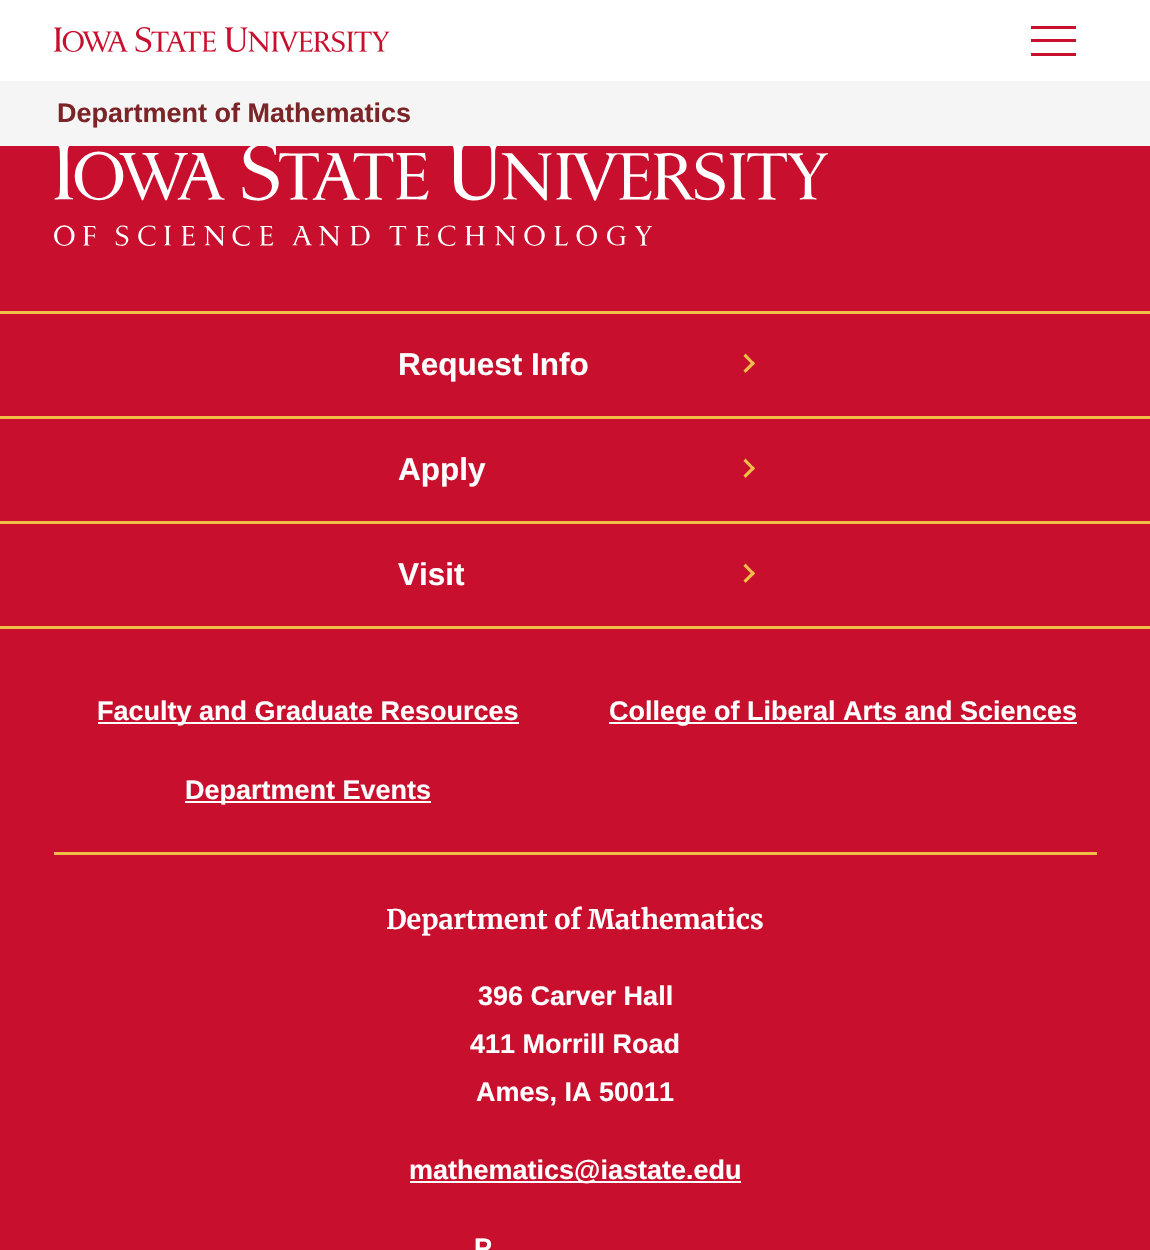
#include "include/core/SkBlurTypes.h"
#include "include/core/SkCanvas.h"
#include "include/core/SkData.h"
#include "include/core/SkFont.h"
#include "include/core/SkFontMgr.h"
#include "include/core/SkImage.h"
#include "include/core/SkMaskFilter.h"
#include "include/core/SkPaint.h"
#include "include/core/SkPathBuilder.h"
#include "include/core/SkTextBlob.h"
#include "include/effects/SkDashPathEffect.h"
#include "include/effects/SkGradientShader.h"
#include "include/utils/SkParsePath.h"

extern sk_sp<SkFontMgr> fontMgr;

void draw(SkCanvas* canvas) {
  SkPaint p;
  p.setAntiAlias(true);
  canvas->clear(SK_ColorWHITE);
  p.setColor(SkColorSetRGB(200, 16, 46));
  canvas->drawRect(SkRect::MakeLTRB(1031, 26, 1076, 29), p);
  canvas->drawRect(SkRect::MakeLTRB(1031, 39, 1076, 42), p);
  canvas->drawRect(SkRect::MakeLTRB(1031, 53, 1076, 56), p);
  canvas->drawImageRect(SkImages::DeferredFromEncodedData(SkData::MakeFromFileName("images/1.png")), SkRect::MakeLTRB(54, 27, 390, 53), SkSamplingOptions());
  p.setColor(SkColorSetRGB(245, 245, 245));
  canvas->drawRect(SkRect::MakeLTRB(0, 81, 1150, 146), p);
  p.setColor(SkColorSetRGB(200, 16, 46));
  canvas->drawRect(SkRect::MakeLTRB(0, 146, 1150, 1250), p);
  canvas->drawImageRect(SkImages::DeferredFromEncodedData(SkData::MakeFromFileName("images/2.png")), SkRect::MakeLTRB(54, 146, 828, 246), SkSamplingOptions());
  p.setColor(SkColorSetRGB(241, 190, 72));
  canvas->drawRect(SkRect::MakeLTRB(0, 311, 1150, 314), p);
  canvas->drawRect(SkRect::MakeLTRB(0, 416, 1150, 419), p);
  canvas->drawPath(SkPathBuilder().moveTo(743.5f, 356).lineTo(745.5f, 353.5f).lineTo(755, 363.5f).lineTo(753, 365.5f).close().detach(), p);
  canvas->drawPath(SkPathBuilder().moveTo(743.5f, 370.5f).lineTo(753, 361).lineTo(755, 363.5f).lineTo(745.5f, 373).close().detach(), p);
  canvas->drawRect(SkRect::MakeLTRB(0, 521, 1150, 524), p);
  canvas->drawPath(SkPathBuilder().moveTo(743.5f, 461).lineTo(745.5f, 458.5f).lineTo(755, 468.5f).lineTo(753, 470.5f).close().detach(), p);
  canvas->drawPath(SkPathBuilder().moveTo(743.5f, 475.5f).lineTo(753, 466).lineTo(755, 468.5f).lineTo(745.5f, 478).close().detach(), p);
  canvas->drawRect(SkRect::MakeLTRB(0, 626, 1150, 629), p);
  canvas->drawPath(SkPathBuilder().moveTo(743.5f, 566).lineTo(745.5f, 563.5f).lineTo(755, 573.5f).lineTo(753, 575.5f).close().detach(), p);
  canvas->drawPath(SkPathBuilder().moveTo(743.5f, 580.5f).lineTo(753, 571).lineTo(755, 573.5f).lineTo(745.5f, 583).close().detach(), p);
  canvas->drawRect(SkRect::MakeLTRB(54, 852, 1097, 855), p);
  p.setColor(SK_ColorWHITE);
  canvas->drawRect(SkRect::MakeLTRB(98, 722, 519, 724), p);
  canvas->drawRect(SkRect::MakeLTRB(609, 722, 1077, 724), p);
  canvas->drawRect(SkRect::MakeLTRB(185, 801, 431, 803), p);
  canvas->drawRect(SkRect::MakeLTRB(410, 1181, 741, 1183), p);
  SkFont font1(fontMgr->matchFamilyStyle("Liberation Sans", SkFontStyle::Bold()), 27);
  font1.setSubpixel(true);
  p.setColor(SkColorSetRGB(124, 37, 41));
  canvas->drawString("Department of Mathematics", 57, 122, font1, p);
  SkFont font2(fontMgr->matchFamilyStyle("Liberation Sans", SkFontStyle::Bold()), 31.5f);
  font2.setSubpixel(true);
  p.setColor(SK_ColorWHITE);
  canvas->drawString("Request Info", 398, 375, font2, p);
  canvas->drawString("Apply", 398, 480, font2, p);
  canvas->drawString("Visit", 398, 585, font2, p);
  canvas->drawString("Faculty and Graduate Resources", 97, 720, font1, p);
  canvas->drawString("College of Liberal Arts and Sciences", 609, 720, font1, p);
  canvas->drawString("Department Events", 185, 799, font1, p);
  SkFont font3(fontMgr->matchFamilyStyle("Merriweather", SkFontStyle::Bold()), 27);
  font3.setSubpixel(true);
  canvas->drawString("Department of Mathematics", 386, 929, font3, p);
  canvas->drawString("396 Carver Hall", 478, 1005, font1, p);
  canvas->drawString("411 Morrill Road", 470, 1053, font1, p);
  canvas->drawString("Ames, IA 50011", 476, 1101, font1, p);
  canvas->drawString("mathematics@iastate.edu", 409, 1179, font1, p);
  canvas->drawString("P", 474, 1257, font1, p);
}
